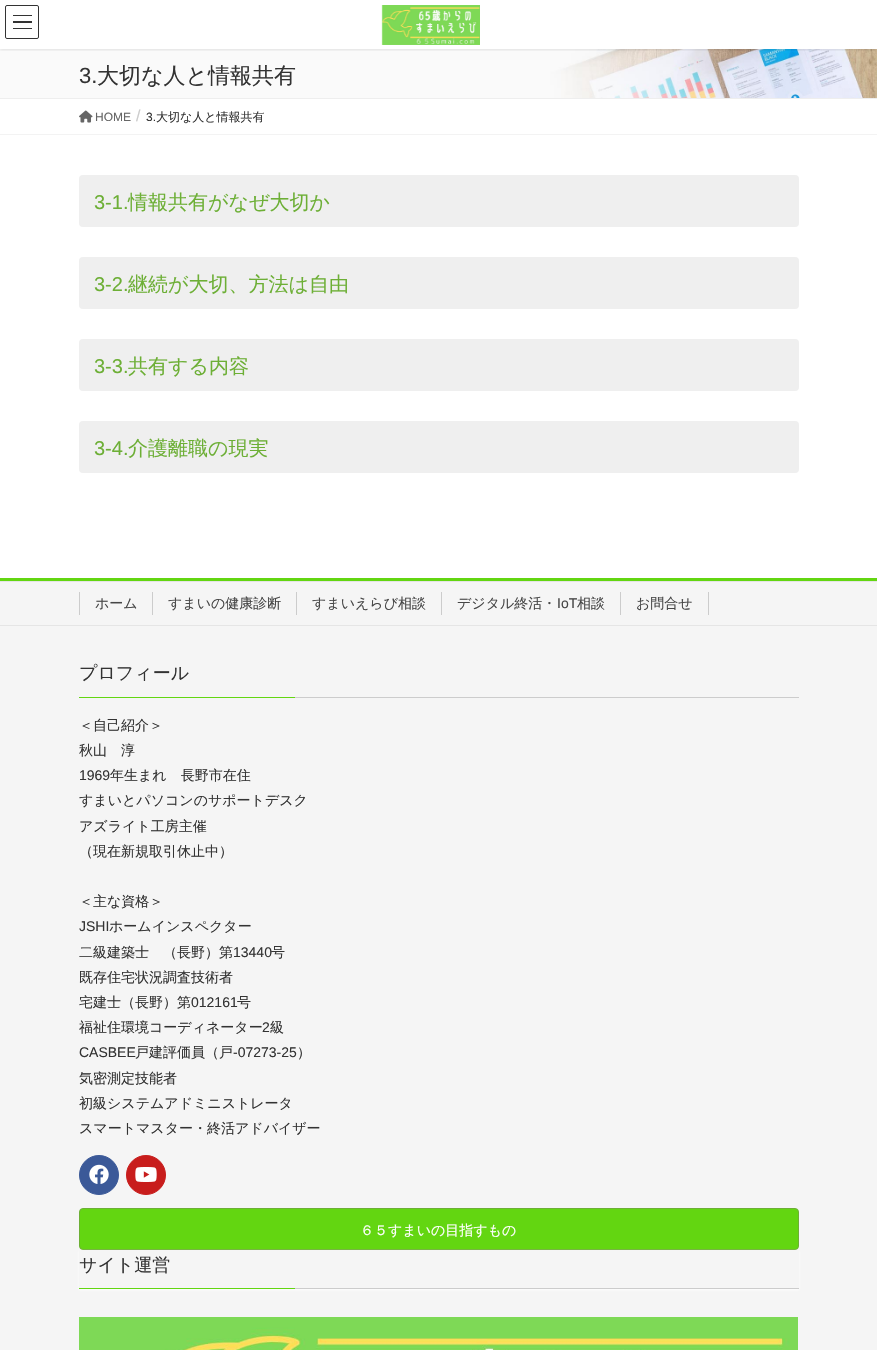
#include "include/core/SkBlurTypes.h"
#include "include/core/SkCanvas.h"
#include "include/core/SkData.h"
#include "include/core/SkFont.h"
#include "include/core/SkFontMgr.h"
#include "include/core/SkImage.h"
#include "include/core/SkMaskFilter.h"
#include "include/core/SkPaint.h"
#include "include/core/SkPathBuilder.h"
#include "include/core/SkTextBlob.h"
#include "include/effects/SkDashPathEffect.h"
#include "include/effects/SkGradientShader.h"
#include "include/utils/SkParsePath.h"

extern sk_sp<SkFontMgr> fontMgr;

void draw(SkCanvas* canvas) {
  SkPaint p;
  p.setAntiAlias(true);
  canvas->clear(SK_ColorWHITE);
  canvas->drawImageRect(SkImages::DeferredFromEncodedData(SkData::MakeFromFileName("images/2.png")), SkRect::MakeLTRB(0, 49, 877, 98), SkSamplingOptions());
  canvas->save();
  canvas->clipRect(SkRect::MakeLTRB(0, 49, 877, 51));
  p.setColor(SkColorSetARGB(26, 0, 0, 0));
  p.setMaskFilter(SkMaskFilter::MakeBlur(kNormal_SkBlurStyle, 1.5f));
  canvas->drawRect(SkRect::MakeLTRB(0, 1, 877, 50), p);
  p.setMaskFilter(nullptr);
  canvas->restore();
  canvas->drawImageRect(SkImages::DeferredFromEncodedData(SkData::MakeFromFileName("images/1.png")), SkRect::MakeLTRB(381, 5, 480, 45), SkSamplingOptions());
  p.setColor(SkColorSetRGB(51, 51, 51));
  canvas->drawRect(SkRect::MakeLTRB(13, 15, 32, 16), p);
  canvas->drawRect(SkRect::MakeLTRB(13, 21, 32, 23), p);
  canvas->drawRect(SkRect::MakeLTRB(13, 28, 32, 29), p);
  p.setStyle(SkPaint::kStroke_Style);
  p.setStrokeWidth(1);
  canvas->drawRoundRect(SkRect::MakeLTRB(5.5f, 5.5f, 38.5f, 38.5f), 1.5f, 1.5f, p);
  p.setStyle(SkPaint::kFill_Style);
  p.setColor(SkColorSetRGB(238, 238, 238));
  canvas->drawRect(SkRect::MakeLTRB(0, 98, 877, 99), p);
  p.setColor(SkColorSetRGB(243, 243, 243));
  canvas->drawRect(SkRect::MakeLTRB(0, 134, 877, 135), p);
  canvas->drawImageRect(SkImages::DeferredFromEncodedData(SkData::MakeFromFileName("images/3.png")), SkRect::MakeLTRB(79, 110, 93, 123), SkSamplingOptions());
  p.setColor(SkColorSetRGB(239, 239, 239));
  canvas->drawRoundRect(SkRect::MakeLTRB(79, 175, 799, 227), 4, 4, p);
  canvas->drawRoundRect(SkRect::MakeLTRB(79, 257, 799, 309), 4, 4, p);
  canvas->drawRoundRect(SkRect::MakeLTRB(79, 339, 799, 391), 4, 4, p);
  canvas->drawRoundRect(SkRect::MakeLTRB(79, 421, 799, 473), 4, 4, p);
  p.setColor(SkColorSetRGB(245, 245, 245));
  canvas->drawRect(SkRect::MakeLTRB(0, 582, 877, 1350), p);
  p.setColor(SkColorSetRGB(99, 214, 17));
  canvas->drawRect(SkRect::MakeLTRB(0, 578, 877, 581), p);
  p.setColor(SkColorSetRGB(229, 229, 229));
  canvas->drawRect(SkRect::MakeLTRB(0, 581, 877, 582), p);
  canvas->drawRect(SkRect::MakeLTRB(0, 625, 877, 626), p);
  p.setColor(SkColorSetRGB(204, 204, 204));
  canvas->drawRect(SkRect::MakeLTRB(79, 592, 80, 615), p);
  canvas->drawRect(SkRect::MakeLTRB(152, 592, 153, 615), p);
  canvas->drawRect(SkRect::MakeLTRB(296, 592, 297, 615), p);
  canvas->drawRect(SkRect::MakeLTRB(441, 592, 442, 615), p);
  canvas->drawRect(SkRect::MakeLTRB(708, 592, 709, 615), p);
  canvas->drawRect(SkRect::MakeLTRB(620, 592, 621, 615), p);
  canvas->drawRect(SkRect::MakeLTRB(295, 697, 799, 698), p);
  p.setColor(SkColorSetRGB(99, 214, 17));
  canvas->drawRect(SkRect::MakeLTRB(79, 697, 295, 698), p);
  p.setColor(SkColorSetRGB(59, 89, 152));
  canvas->drawCircle(99, 1175, 19.5f, p);
  p.setStyle(SkPaint::kStroke_Style);
  canvas->drawCircle(99, 1175, 19.5f, p);
  canvas->drawImageRect(SkImages::DeferredFromEncodedData(SkData::MakeFromFileName("images/4.png")), SkRect::MakeLTRB(89, 1164, 109, 1184), SkSamplingOptions());
  p.setStyle(SkPaint::kFill_Style);
  p.setColor(SkColorSetRGB(200, 29, 28));
  canvas->drawCircle(146, 1175, 19.5f, p);
  p.setStyle(SkPaint::kStroke_Style);
  canvas->drawCircle(146, 1175, 19.5f, p);
  canvas->drawImageRect(SkImages::DeferredFromEncodedData(SkData::MakeFromFileName("images/5.png")), SkRect::MakeLTRB(135, 1167, 157, 1182), SkSamplingOptions());
  p.setStyle(SkPaint::kFill_Style);
  p.setColor(SkColorSetRGB(99, 214, 17));
  canvas->drawRoundRect(SkRect::MakeLTRB(79.5f, 1208.5f, 798.5f, 1249.5f), 3.5f, 3.5f, p);
  p.setStyle(SkPaint::kStroke_Style);
  p.setColor(SkColorSetRGB(109, 175, 54));
  canvas->drawRoundRect(SkRect::MakeLTRB(79.5f, 1208.5f, 798.5f, 1249.5f), 3.5f, 3.5f, p);
  canvas->save();
  canvas->clipPath(SkPathBuilder(SkPathFillType::kEvenOdd).moveTo(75, 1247).lineTo(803, 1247).lineTo(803, 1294).lineTo(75, 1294).close().moveTo(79, 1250).lineTo(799, 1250).lineTo(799, 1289).lineTo(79, 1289).close().detach(), true);
  p.setStyle(SkPaint::kFill_Style);
  p.setColor(SkColorSetARGB(230, 255, 255, 255));
  p.setMaskFilter(SkMaskFilter::MakeBlur(kNormal_SkBlurStyle, 1));
  canvas->drawRect(SkRect::MakeLTRB(79, 1251, 799, 1290), p);
  p.setMaskFilter(nullptr);
  canvas->restore();
  p.setColor(SkColorSetRGB(204, 204, 204));
  canvas->drawRect(SkRect::MakeLTRB(295, 1288, 799, 1289), p);
  p.setColor(SkColorSetRGB(99, 214, 17));
  canvas->drawRect(SkRect::MakeLTRB(79, 1288, 295, 1289), p);
  canvas->drawImageRect(SkImages::DeferredFromEncodedData(SkData::MakeFromFileName("images/6.png")), SkRect::MakeLTRB(79, 1317, 798, 1350), SkSamplingOptions());
  SkFont font1(fontMgr->matchFamilyStyle("Liberation Sans", SkFontStyle::Normal()), 22);
  font1.setSubpixel(true);
  p.setColor(SkColorSetRGB(51, 51, 51));
  canvas->drawString("3.", 79, 83, font1, p);
  SkFont font2(fontMgr->matchFamilyStyle("WenQuanYi Zen Hei", SkFontStyle(500, SkFontStyle::kNormal_Width, SkFontStyle::kUpright_Slant)), 22);
  font2.setSubpixel(true);
  canvas->drawString("大切な人と情報共有", 97, 83, font2, p);
  SkFont font3(fontMgr->matchFamilyStyle("Liberation Sans", SkFontStyle::Normal()), 12);
  font3.setSubpixel(true);
  p.setColor(SkColorSetRGB(102, 102, 102));
  canvas->drawString("HOME", 95, 121, font3, p);
  SkFont font4(fontMgr->matchFamilyStyle("Liberation Sans", SkFontStyle::Normal()), 16);
  font4.setSubpixel(true);
  p.setColor(SkColorSetRGB(204, 204, 204));
  canvas->drawString("/", 136, 121, font4, p);
  p.setColor(SkColorSetRGB(51, 51, 51));
  canvas->drawString("3.", 146, 121, font3, p);
  SkFont font5(fontMgr->matchFamilyStyle("WenQuanYi Zen Hei", SkFontStyle(500, SkFontStyle::kNormal_Width, SkFontStyle::kUpright_Slant)), 12);
  font5.setSubpixel(true);
  canvas->drawString("大切な人と情報共有", 156, 121, font5, p);
  SkFont font6(fontMgr->matchFamilyStyle("Liberation Sans", SkFontStyle::Normal()), 20);
  font6.setSubpixel(true);
  p.setColor(SkColorSetRGB(109, 175, 54));
  canvas->drawString("3-1.", 94, 209, font6, p);
  SkFont font7(fontMgr->matchFamilyStyle("WenQuanYi Zen Hei", SkFontStyle(500, SkFontStyle::kNormal_Width, SkFontStyle::kUpright_Slant)), 20);
  font7.setSubpixel(true);
  canvas->drawString("情報共有がなぜ大切か", 128, 209, font7, p);
  canvas->drawString("3-2.", 94, 291, font6, p);
  canvas->drawString("継続が大切、方法は自由", 128, 291, font7, p);
  canvas->drawString("3-3.", 94, 373, font6, p);
  canvas->drawString("共有する内容", 128, 373, font7, p);
  canvas->drawString("3-4.", 94, 455, font6, p);
  canvas->drawString("介護離職の現実", 128, 455, font7, p);
  SkFont font8(fontMgr->matchFamilyStyle("WenQuanYi Zen Hei", SkFontStyle(500, SkFontStyle::kNormal_Width, SkFontStyle::kUpright_Slant)), 14);
  font8.setSubpixel(true);
  p.setColor(SkColorSetRGB(70, 70, 70));
  canvas->drawString("ホーム", 95, 608, font8, p);
  canvas->drawString("すまいの健康診断", 168, 608, font8, p);
  canvas->drawString("すまいえらび相談", 312, 608, font8, p);
  canvas->drawString("デジタル終活・", 457, 608, font8, p);
  SkFont font9(fontMgr->matchFamilyStyle("Liberation Sans", SkFontStyle::Normal()), 14);
  font9.setSubpixel(true);
  canvas->drawString("IoT", 557, 608, font9, p);
  canvas->drawString("相談", 577, 608, font8, p);
  canvas->drawString("お問合せ", 636, 608, font8, p);
  SkFont font10(fontMgr->matchFamilyStyle("WenQuanYi Zen Hei", SkFontStyle(500, SkFontStyle::kNormal_Width, SkFontStyle::kUpright_Slant)), 18);
  font10.setSubpixel(true);
  p.setColor(SkColorSetRGB(51, 51, 51));
  canvas->drawString("プロフィール", 79, 679, font10, p);
  canvas->drawString("＜自己紹介＞", 79, 730, font8, p);
  canvas->drawString("秋山　淳", 79, 755, font8, p);
  canvas->drawString("1969", 79, 780, font9, p);
  canvas->drawString("年生まれ　長野市在住", 110, 780, font8, p);
  canvas->drawString("すまいとパソコンのサポートデスク", 79, 805, font8, p);
  canvas->drawString("アズライト工房主催", 79, 831, font8, p);
  canvas->drawString("（現在新規取引休止中）", 79, 856, font8, p);
  canvas->drawString("＜主な資格＞", 79, 906, font8, p);
  canvas->drawString("JSHI", 79, 931, font9, p);
  canvas->drawString("ホームインスペクター", 109, 931, font8, p);
  canvas->drawString("二級建築士　（長野）第", 79, 957, font8, p);
  canvas->drawString("13440", 233, 957, font9, p);
  canvas->drawString("号", 271, 957, font8, p);
  canvas->drawString("既存住宅状況調査技術者", 79, 982, font8, p);
  canvas->drawString("宅建士（長野）第", 79, 1007, font8, p);
  canvas->drawString("012161", 191, 1007, font9, p);
  canvas->drawString("号", 237, 1007, font8, p);
  canvas->drawString("福祉住環境コーディネーター", 79, 1032, font8, p);
  canvas->drawString("2", 262, 1032, font9, p);
  canvas->drawString("級", 270, 1032, font8, p);
  canvas->drawString("CASBEE", 79, 1057, font9, p);
  canvas->drawString("戸建評価員（戸", 135, 1057, font8, p);
  canvas->drawString("-07273-25", 233, 1057, font9, p);
  canvas->drawString("）", 297, 1057, font8, p);
  canvas->drawString("気密測定技能者", 79, 1083, font8, p);
  canvas->drawString("初級システムアドミニストレータ", 79, 1108, font8, p);
  canvas->drawString("スマートマスター・終活アドバイザー", 79, 1133, font8, p);
  p.setColor(SK_ColorWHITE);
  canvas->drawString("６５すまいの目指すもの", 360, 1235, font8, p);
  p.setColor(SkColorSetRGB(51, 51, 51));
  canvas->drawString("サイト運営", 79, 1271, font10, p);
}
